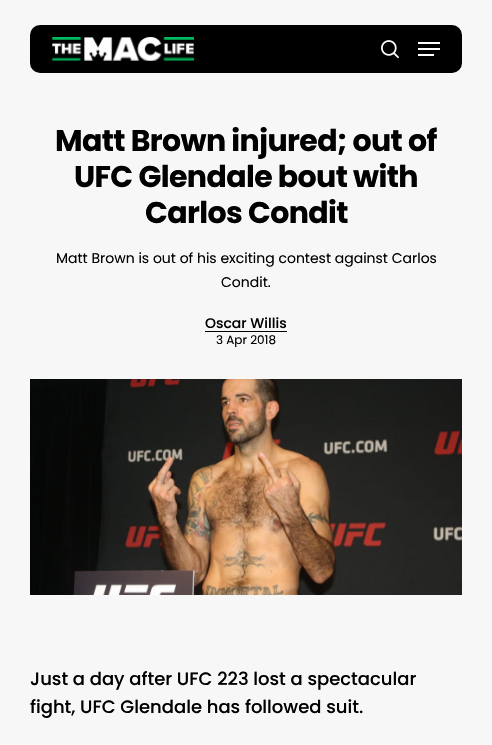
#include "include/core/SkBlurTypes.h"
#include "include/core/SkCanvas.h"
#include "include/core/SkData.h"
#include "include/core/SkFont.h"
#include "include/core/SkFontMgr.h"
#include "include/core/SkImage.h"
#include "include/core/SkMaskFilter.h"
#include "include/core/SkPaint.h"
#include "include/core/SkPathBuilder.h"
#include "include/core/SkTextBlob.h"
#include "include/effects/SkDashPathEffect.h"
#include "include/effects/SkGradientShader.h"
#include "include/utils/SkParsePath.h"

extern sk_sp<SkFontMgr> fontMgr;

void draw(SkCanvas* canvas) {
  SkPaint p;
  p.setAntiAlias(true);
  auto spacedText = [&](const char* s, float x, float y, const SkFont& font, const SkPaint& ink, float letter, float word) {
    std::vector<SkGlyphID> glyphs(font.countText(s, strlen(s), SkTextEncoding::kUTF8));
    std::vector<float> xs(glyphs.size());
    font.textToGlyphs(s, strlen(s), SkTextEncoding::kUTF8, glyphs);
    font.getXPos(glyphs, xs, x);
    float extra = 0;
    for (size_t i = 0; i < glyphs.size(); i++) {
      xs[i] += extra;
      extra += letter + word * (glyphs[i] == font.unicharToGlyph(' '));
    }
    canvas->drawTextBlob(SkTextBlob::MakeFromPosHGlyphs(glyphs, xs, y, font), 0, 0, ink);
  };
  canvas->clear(SkColorSetRGB(247, 247, 247));
  p.setColor(SK_ColorBLACK);
  canvas->drawRoundRect(SkRect::MakeLTRB(30, 25, 462, 73), 10, 10, p);
  canvas->drawImageRect(SkImages::DeferredFromEncodedData(SkData::MakeFromFileName("images/1.png")), SkRect::MakeLTRB(52, 37, 194, 61), SkSamplingOptions());
  canvas->drawImageRect(SkImages::DeferredFromEncodedData(SkData::MakeFromFileName("images/2.png")), SkRect::MakeLTRB(381, 40, 399, 59), SkSamplingOptions());
  p.setColor(SK_ColorWHITE);
  canvas->drawRect(SkRect::MakeLTRB(418, 42, 440, 44), p);
  canvas->drawRect(SkRect::MakeLTRB(418, 54, 434, 56), p);
  canvas->drawRect(SkRect::MakeLTRB(418, 48, 440, 50), p);
  p.setColor(SK_ColorBLACK);
  canvas->drawRect(SkRect::MakeLTRB(205, 331, 287, 332), p);
  canvas->drawImageRect(SkImages::DeferredFromEncodedData(SkData::MakeFromFileName("images/3.png")), SkRect::MakeLTRB(30, 379, 462, 595), SkSamplingOptions());
  SkFont font1(fontMgr->matchFamilyStyle("Poppins", SkFontStyle::Bold()), 30);
  font1.setSubpixel(true);
  spacedText("Matt Brown injured; out of", 55, 151, font1, p, -0.6f, 0);
  spacedText("UFC Glendale bout with", 74, 187, font1, p, -0.6f, 0);
  spacedText("Carlos Condit", 145, 223, font1, p, -0.6f, 0);
  SkFont font2(fontMgr->matchFamilyStyle("Poppins", SkFontStyle::Normal()), 14);
  font2.setSubpixel(true);
  canvas->drawString("Matt Brown is out of his exciting contest against Carlos", 56, 263, font2, p);
  canvas->drawString("Condit.", 221, 287, font2, p);
  SkFont font3(fontMgr->matchFamilyStyle("Poppins", SkFontStyle(500, SkFontStyle::kNormal_Width, SkFontStyle::kUpright_Slant)), 14);
  font3.setSubpixel(true);
  canvas->drawString("Oscar Willis", 205, 328, font3, p);
  SkFont font4(fontMgr->matchFamilyStyle("Poppins", SkFontStyle::Normal()), 12);
  font4.setSubpixel(true);
  canvas->drawString("3 Apr 2018", 216, 344, font4, p);
  SkFont font5(fontMgr->matchFamilyStyle("Poppins", SkFontStyle(500, SkFontStyle::kNormal_Width, SkFontStyle::kUpright_Slant)), 18);
  font5.setSubpixel(true);
  canvas->drawString("Just a day after UFC 223 lost a spectacular", 30, 685, font5, p);
  canvas->drawString("fight, UFC Glendale has followed suit.", 30, 713, font5, p);
}
